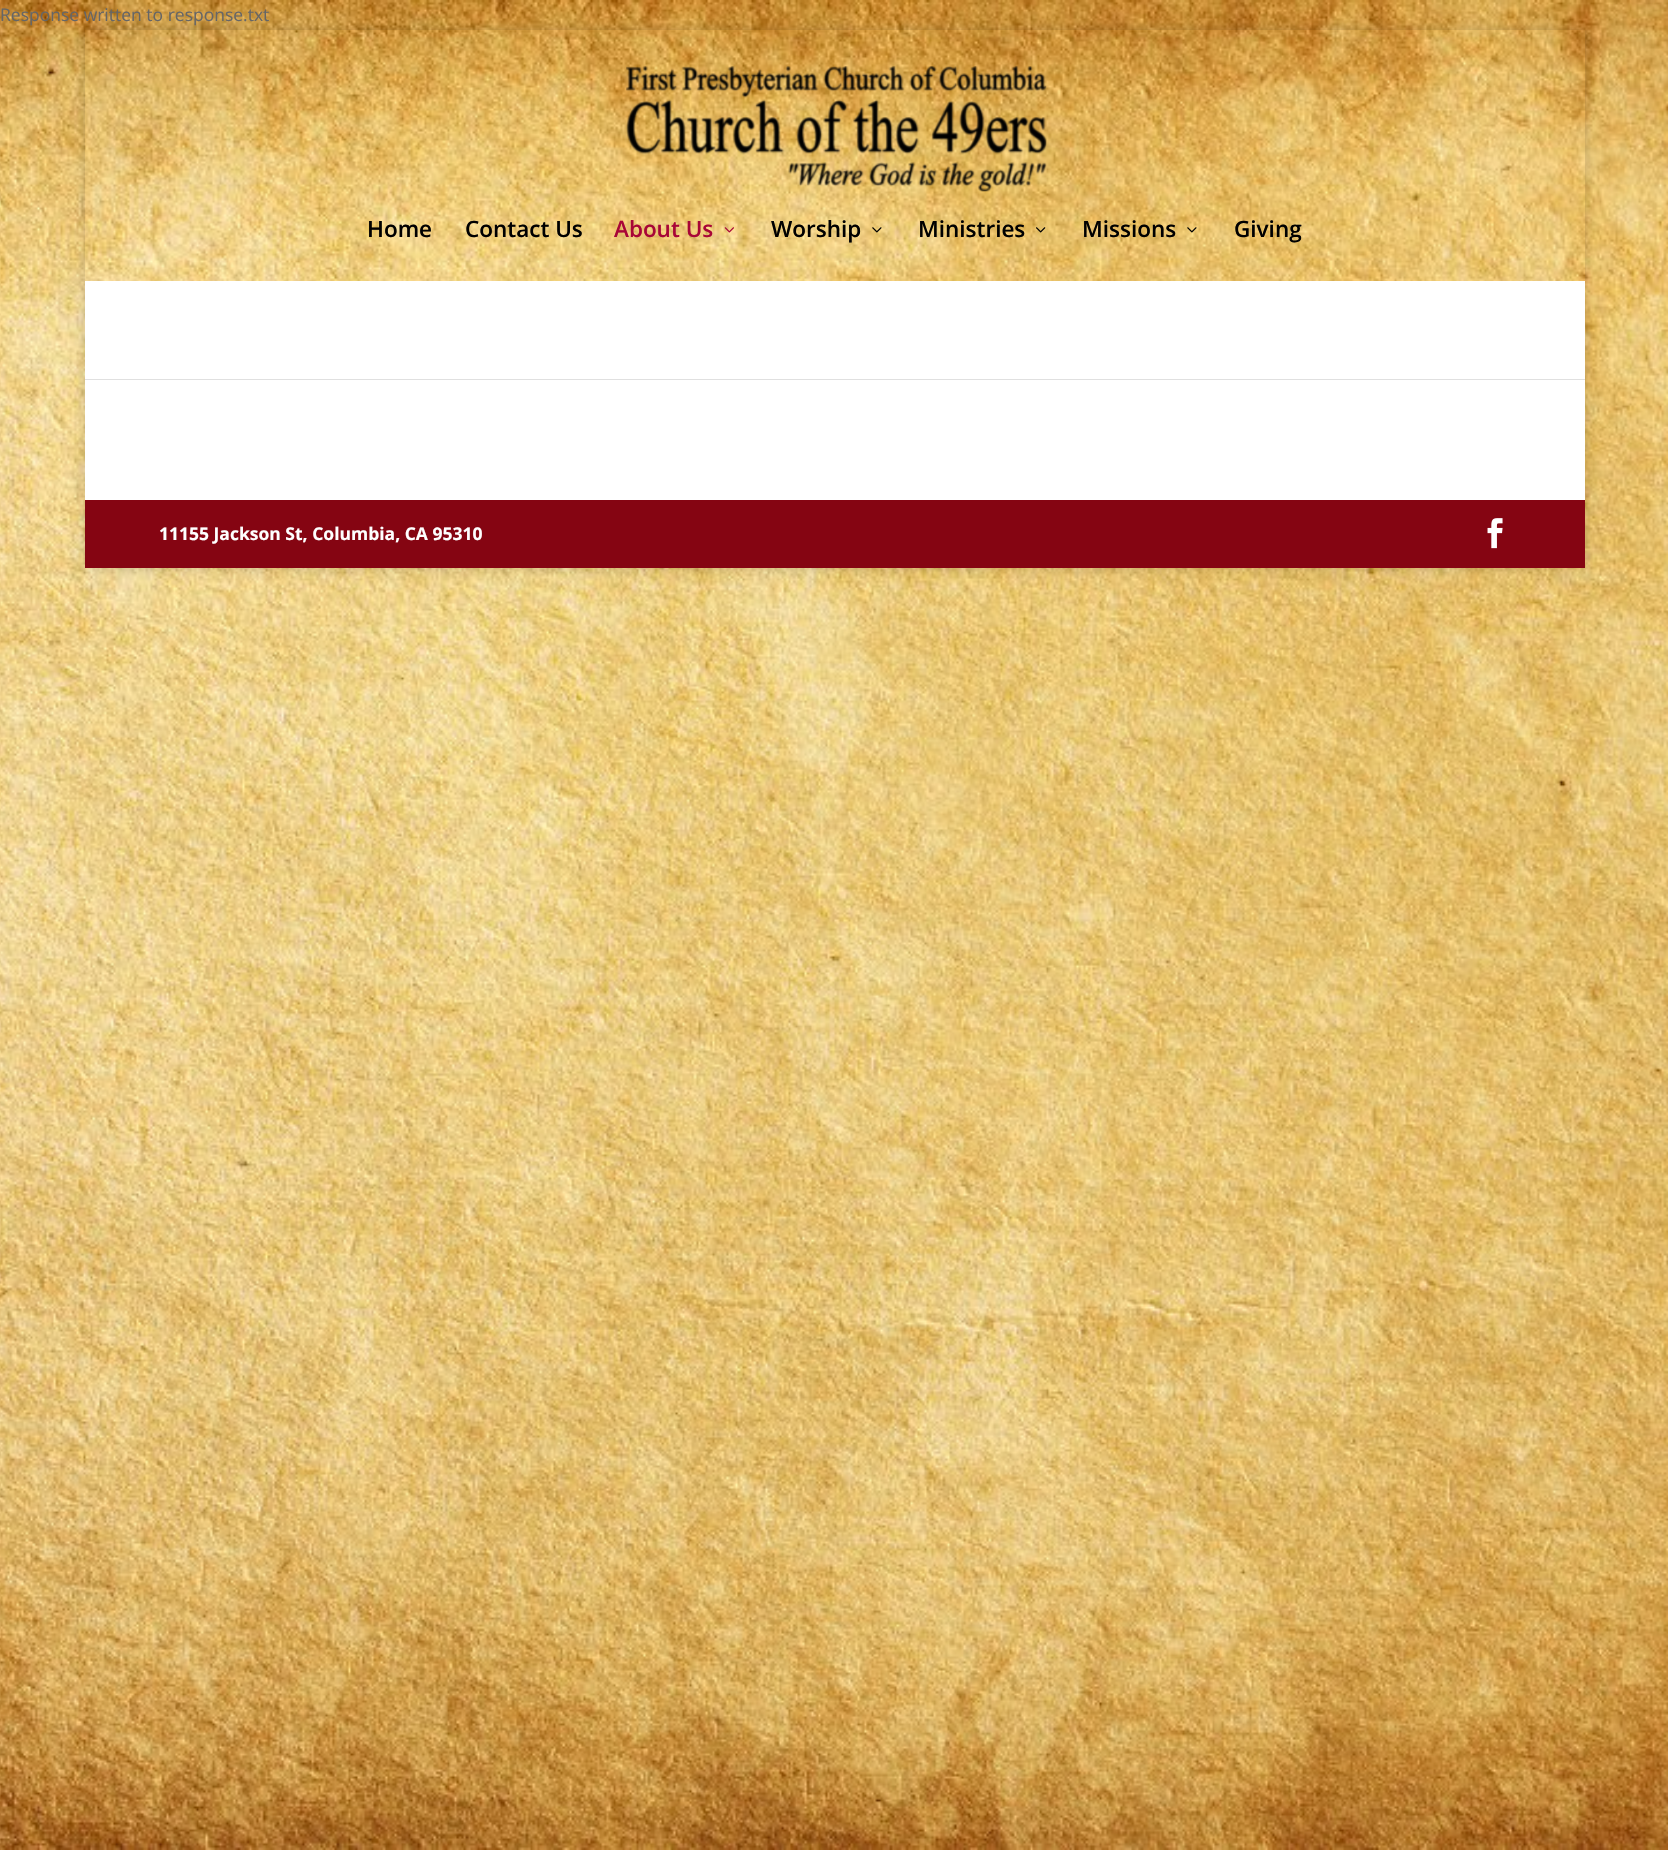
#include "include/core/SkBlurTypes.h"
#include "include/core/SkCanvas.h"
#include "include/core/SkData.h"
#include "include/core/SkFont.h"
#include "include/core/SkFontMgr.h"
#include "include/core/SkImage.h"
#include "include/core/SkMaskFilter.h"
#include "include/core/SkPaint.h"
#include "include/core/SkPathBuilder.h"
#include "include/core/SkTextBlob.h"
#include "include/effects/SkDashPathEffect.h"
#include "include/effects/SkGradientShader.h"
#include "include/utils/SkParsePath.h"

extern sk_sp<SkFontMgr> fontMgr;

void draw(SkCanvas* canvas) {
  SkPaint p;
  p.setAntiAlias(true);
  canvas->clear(SK_ColorWHITE);
  canvas->drawImageRect(SkImages::DeferredFromEncodedData(SkData::MakeFromFileName("images/1.png")), SkRect::MakeLTRB(0, 0, 1668, 1850), SkSamplingOptions());
  canvas->save();
  canvas->clipPath(SkPathBuilder(SkPathFillType::kEvenOdd).moveTo(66, 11).lineTo(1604, 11).lineTo(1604, 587).lineTo(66, 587).close().moveTo(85, 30).lineTo(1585, 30).lineTo(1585, 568).lineTo(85, 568).close().detach(), true);
  p.setColor(SkColorSetARGB(51, 0, 0, 0));
  p.setMaskFilter(SkMaskFilter::MakeBlur(kNormal_SkBlurStyle, 6));
  canvas->drawRect(SkRect::MakeLTRB(85, 30, 1585, 568), p);
  p.setMaskFilter(nullptr);
  canvas->restore();
  canvas->drawImageRect(SkImages::DeferredFromEncodedData(SkData::MakeFromFileName("images/2.png")), SkRect::MakeLTRB(626, 66, 1047, 192), SkSamplingOptions());
  canvas->drawImageRect(SkImages::DeferredFromEncodedData(SkData::MakeFromFileName("images/3.png")), SkRect::MakeLTRB(724, 227, 734, 233), SkSamplingOptions());
  canvas->drawImageRect(SkImages::DeferredFromEncodedData(SkData::MakeFromFileName("images/4.png")), SkRect::MakeLTRB(872, 227, 882, 233), SkSamplingOptions());
  canvas->drawImageRect(SkImages::DeferredFromEncodedData(SkData::MakeFromFileName("images/5.png")), SkRect::MakeLTRB(1036, 227, 1046, 233), SkSamplingOptions());
  canvas->drawImageRect(SkImages::DeferredFromEncodedData(SkData::MakeFromFileName("images/6.png")), SkRect::MakeLTRB(1187, 227, 1197, 233), SkSamplingOptions());
  p.setColor(SK_ColorWHITE);
  canvas->drawRect(SkRect::MakeLTRB(85, 281, 1585, 379), p);
  canvas->drawRect(SkRect::MakeLTRB(85, 380, 1585, 500), p);
  p.setColor(SkColorSetRGB(224, 224, 224));
  canvas->drawRect(SkRect::MakeLTRB(85, 379, 1585, 380), p);
  p.setColor(SkColorSetRGB(133, 5, 18));
  canvas->drawRect(SkRect::MakeLTRB(85, 500, 1585, 568), p);
  canvas->drawImageRect(SkImages::DeferredFromEncodedData(SkData::MakeFromFileName("images/7.png")), SkRect::MakeLTRB(1487, 518, 1503, 549), SkSamplingOptions());
  SkFont font1(fontMgr->matchFamilyStyle("Open Sans", SkFontStyle::Normal()), 17.5f);
  font1.setSubpixel(true);
  p.setColor(SkColorSetRGB(102, 102, 102));
  canvas->drawString("Response written to response.txt", 0, 21, font1, p);
  SkFont font2(fontMgr->matchFamilyStyle("Open Sans", SkFontStyle(600, SkFontStyle::kNormal_Width, SkFontStyle::kUpright_Slant)), 22.5f);
  font2.setSubpixel(true);
  p.setColor(SK_ColorBLACK);
  canvas->drawString("Home", 367, 237, font2, p);
  canvas->drawString("Contact Us", 465, 237, font2, p);
  p.setColor(SkColorSetRGB(168, 6, 55));
  canvas->drawString("About Us", 614, 237, font2, p);
  p.setColor(SK_ColorBLACK);
  canvas->drawString("Worship", 771, 237, font2, p);
  canvas->drawString("Ministries", 918, 237, font2, p);
  canvas->drawString("Missions", 1082, 237, font2, p);
  canvas->drawString("Giving", 1234, 237, font2, p);
  SkFont font3(fontMgr->matchFamilyStyle("Open Sans", SkFontStyle::Bold()), 17.5f);
  font3.setSubpixel(true);
  p.setColor(SK_ColorWHITE);
  canvas->drawString("11155 Jackson St, Columbia, CA 95310", 159, 540, font3, p);
}
